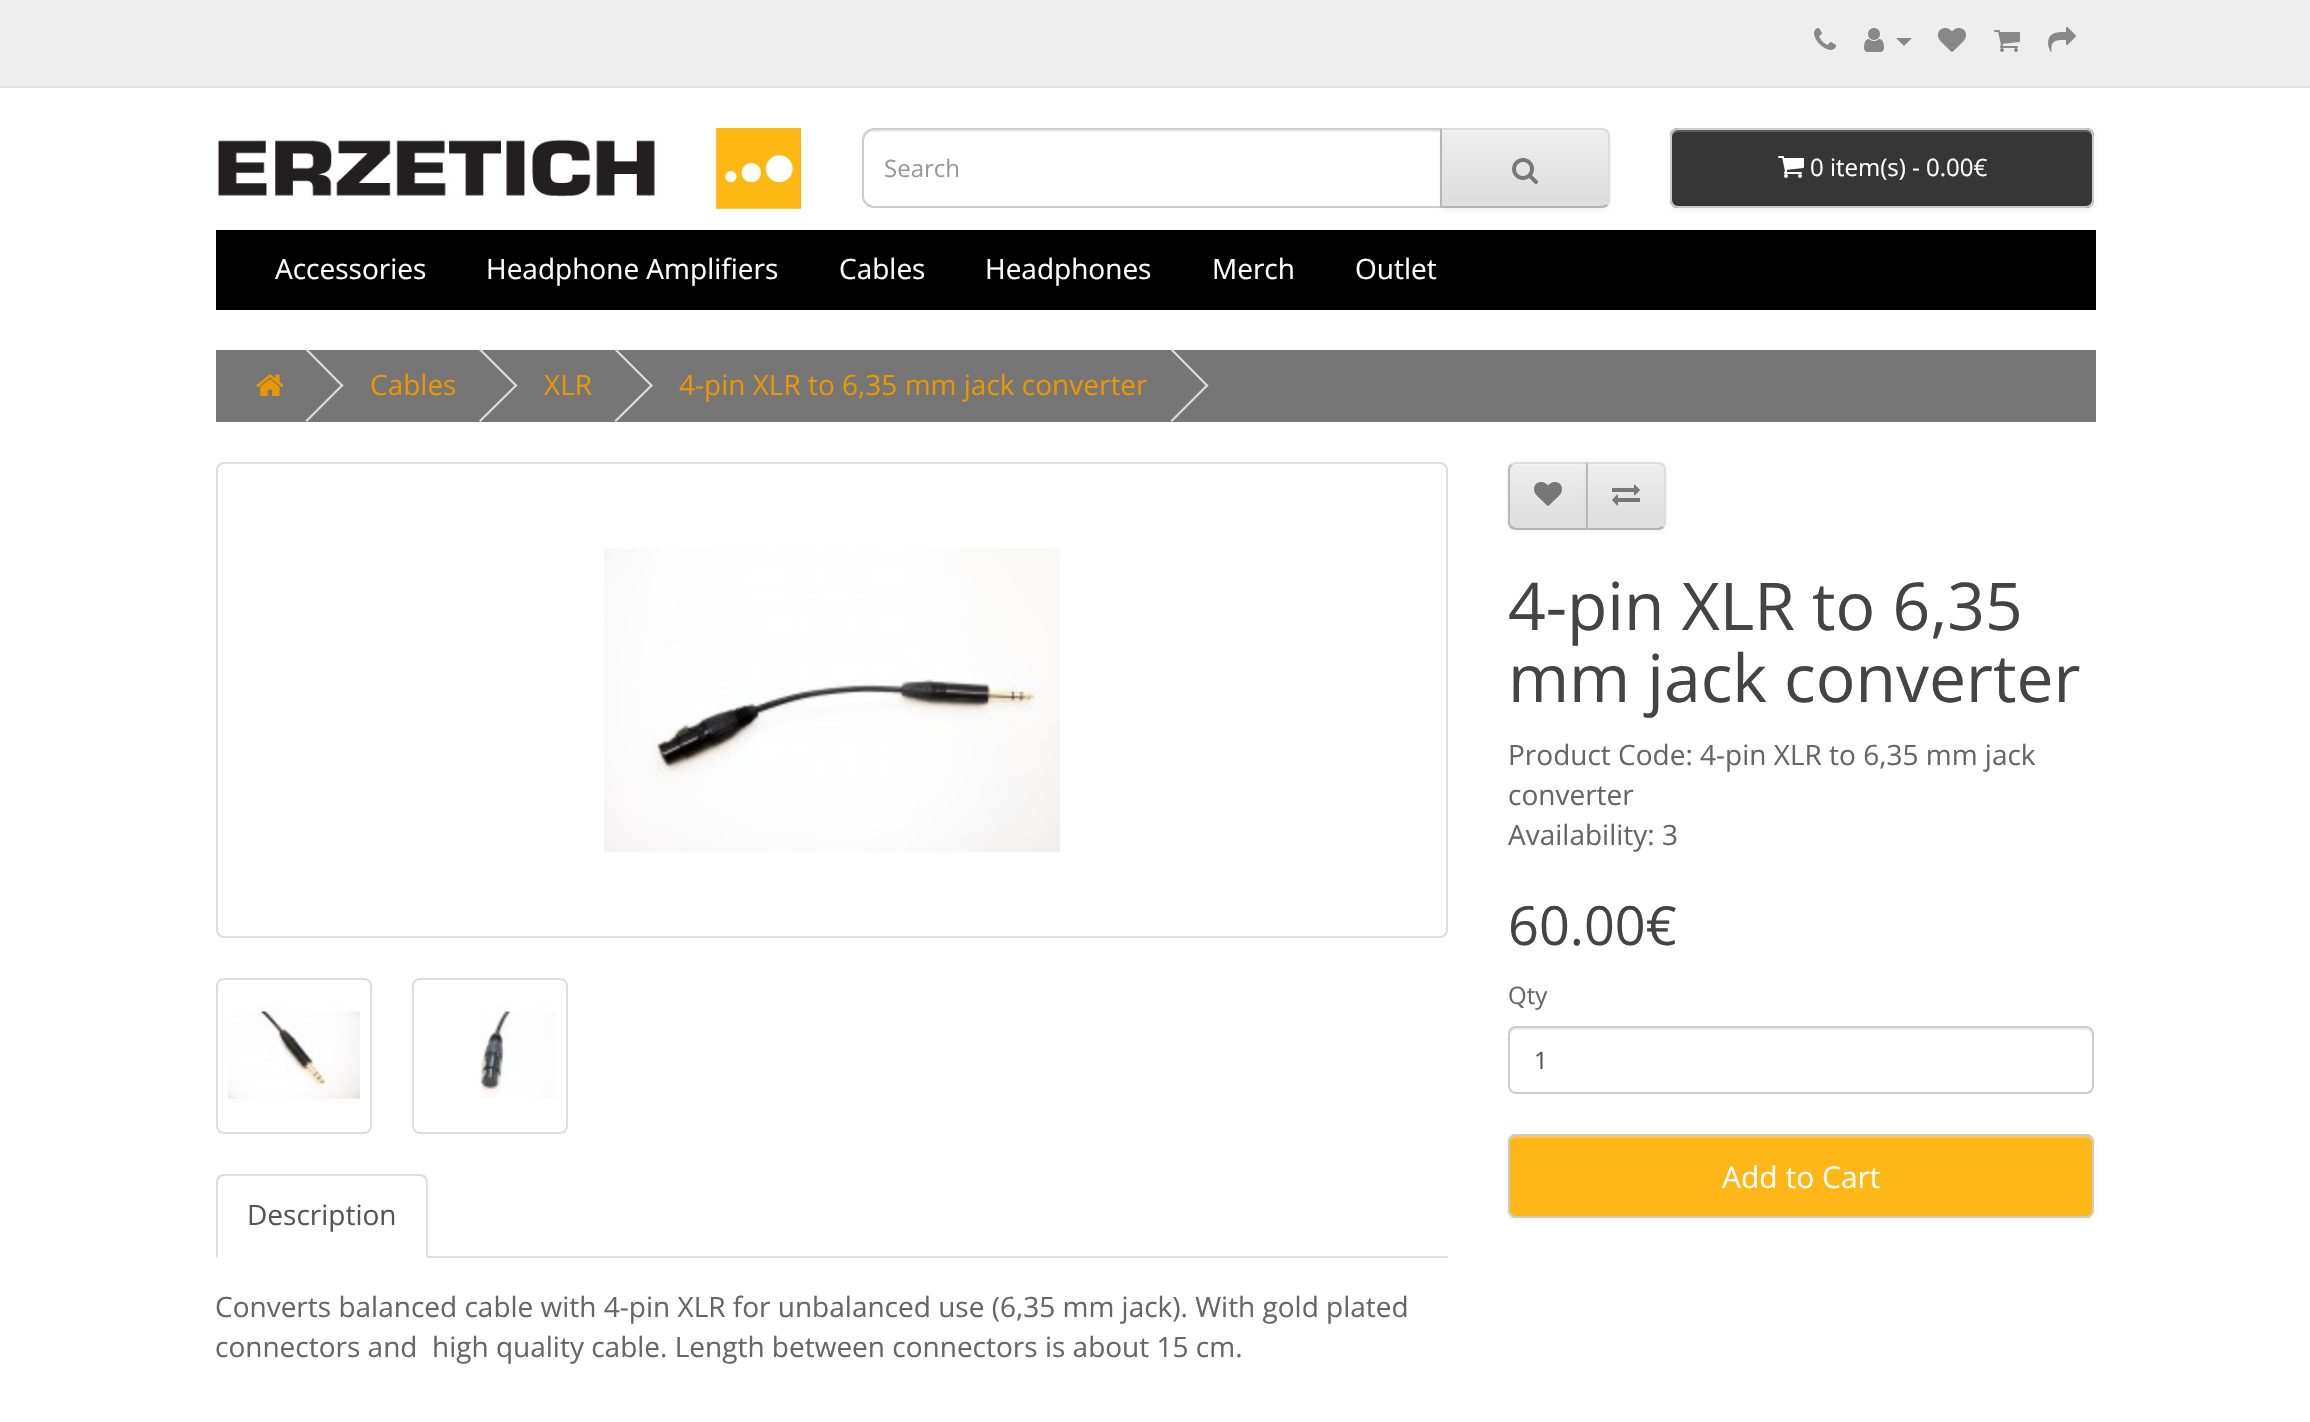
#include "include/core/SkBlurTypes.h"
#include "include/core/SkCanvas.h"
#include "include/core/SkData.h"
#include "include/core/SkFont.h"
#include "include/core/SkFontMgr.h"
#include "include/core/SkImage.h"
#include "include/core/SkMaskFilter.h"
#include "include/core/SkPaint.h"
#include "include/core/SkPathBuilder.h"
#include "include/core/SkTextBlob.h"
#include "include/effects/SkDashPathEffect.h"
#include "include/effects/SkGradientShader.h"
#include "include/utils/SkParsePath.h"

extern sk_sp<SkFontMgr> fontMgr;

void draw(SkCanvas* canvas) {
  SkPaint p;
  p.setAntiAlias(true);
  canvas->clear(SK_ColorWHITE);
  p.setColor(SkColorSetRGB(238, 238, 238));
  canvas->drawRect(SkRect::MakeLTRB(0, 0, 2310, 86), p);
  p.setColor(SkColorSetRGB(226, 226, 226));
  canvas->drawRect(SkRect::MakeLTRB(0, 86, 2310, 88), p);
  canvas->drawImageRect(SkImages::DeferredFromEncodedData(SkData::MakeFromFileName("images/1.png")), SkRect::MakeLTRB(1814, 28, 1836, 50), SkSamplingOptions());
  canvas->drawImageRect(SkImages::DeferredFromEncodedData(SkData::MakeFromFileName("images/2.png")), SkRect::MakeLTRB(1864, 28, 1884, 52), SkSamplingOptions());
  p.setColor(SkColorSetRGB(136, 136, 136));
  canvas->drawPath(SkPathBuilder().moveTo(1896, 38).lineTo(1912, 38).lineTo(1904, 46).close().detach(), p);
  canvas->drawImageRect(SkImages::DeferredFromEncodedData(SkData::MakeFromFileName("images/3.png")), SkRect::MakeLTRB(1938, 28, 1966, 52), SkSamplingOptions());
  canvas->drawImageRect(SkImages::DeferredFromEncodedData(SkData::MakeFromFileName("images/4.png")), SkRect::MakeLTRB(1994, 30, 2020, 52), SkSamplingOptions());
  canvas->drawImageRect(SkImages::DeferredFromEncodedData(SkData::MakeFromFileName("images/5.png")), SkRect::MakeLTRB(2048, 27, 2076, 52), SkSamplingOptions());
  canvas->drawImageRect(SkImages::DeferredFromEncodedData(SkData::MakeFromFileName("images/6.png")), SkRect::MakeLTRB(217, 128, 802, 210), SkSamplingOptions());
  p.setColor(SkColorSetRGB(236, 236, 236));
  canvas->drawPath(SkPathBuilder().moveTo(874, 132).lineTo(1440, 132).lineTo(1440, 130).lineTo(874, 130).cubicTo(868, 130, 864, 134, 864, 140).lineTo(864, 142).cubicTo(864, 136, 868, 132, 874, 132).close().detach(), p);
  p.setStyle(SkPaint::kStroke_Style);
  p.setStrokeWidth(2);
  p.setColor(SkColorSetRGB(204, 204, 204));
  canvas->drawPath(SkPathBuilder().moveTo(874, 129).lineTo(1441, 129).lineTo(1441, 207).lineTo(874, 207).cubicTo(868, 207, 863, 202, 863, 196).lineTo(863, 140).cubicTo(863, 134, 868, 129, 874, 129).close().detach(), p);
  p.setStyle(SkPaint::kFill_Style);
  p.setColor(SkColorSetARGB(13, 0, 0, 0));
  p.setMaskFilter(SkMaskFilter::MakeBlur(kNormal_SkBlurStyle, 2));
  canvas->drawRoundRect(SkRect::MakeLTRB(1440, 130, 1610, 210), 8, 8, p);
  p.setMaskFilter(nullptr);
  canvas->save();
  canvas->clipPath(SkPathBuilder().moveTo(1440, 128).lineTo(1602, 128).cubicTo(1606.5f, 128, 1610, 131.5f, 1610, 136).lineTo(1610, 200).cubicTo(1610, 204.5f, 1606.5f, 208, 1602, 208).lineTo(1440, 208).close().detach(), true);
  {
    const SkColor colors[] = {SkColorSetRGB(238, 238, 238), SkColorSetRGB(221, 221, 221)};
    const float stops[] = {0, 1};
    const SkPoint ends[] = {{1525, 130}, {1525, 206}};
    p.setShader(SkGradientShader::MakeLinear(ends, colors, stops, 2, SkTileMode::kClamp));
    p.setAlpha(255);
  }
  canvas->drawRect(SkRect::MakeLTRB(1442, 130, 1610, 206), p);
  canvas->restore();
  p.setShader(nullptr);
  p.setColor(SkColorSetRGB(241, 241, 241));
  canvas->drawPath(SkPathBuilder().moveTo(1442, 132).lineTo(1602, 132).cubicTo(1605, 132, 1608, 135, 1608, 138).lineTo(1608, 136).cubicTo(1608, 133, 1605, 130, 1602, 130).lineTo(1442, 130).close().detach(), p);
  p.setColor(SkColorSetRGB(221, 221, 221));
  canvas->drawPath(SkPathBuilder().moveTo(1440, 128).lineTo(1442, 130).lineTo(1603, 130).lineTo(1606, 132).lineTo(1608, 130).cubicTo(1606, 129, 1604, 128, 1602, 128).close().detach(), p);
  canvas->drawPath(SkPathBuilder().moveTo(1610, 200).lineTo(1610, 136).cubicTo(1610, 134, 1609, 132, 1608, 130).lineTo(1606, 132).cubicTo(1607, 133, 1608, 134, 1608, 136).lineTo(1608, 200).cubicTo(1608, 202, 1607, 203, 1606, 204).lineTo(1608, 206).cubicTo(1609, 204, 1610, 202, 1610, 200).close().detach(), p);
  p.setColor(SkColorSetRGB(179, 179, 179));
  canvas->drawPath(SkPathBuilder().moveTo(1602, 208).cubicTo(1604, 208, 1606, 207, 1608, 206).lineTo(1606, 204).lineTo(1603, 206).lineTo(1442, 206).lineTo(1440, 208).close().detach(), p);
  p.setColor(SkColorSetRGB(183, 183, 183));
  canvas->drawPath(SkPathBuilder().moveTo(1440, 128).lineTo(1440, 208).lineTo(1442, 206).lineTo(1442, 130).close().detach(), p);
  canvas->drawImageRect(SkImages::DeferredFromEncodedData(SkData::MakeFromFileName("images/7.png")), SkRect::MakeLTRB(1512, 158, 1538, 184), SkSamplingOptions());
  p.setColor(SkColorSetARGB(13, 0, 0, 0));
  p.setMaskFilter(SkMaskFilter::MakeBlur(kNormal_SkBlurStyle, 2));
  canvas->drawRoundRect(SkRect::MakeLTRB(1670, 130, 2094, 210), 8, 8, p);
  p.setMaskFilter(nullptr);
  p.setColor(SkColorSetRGB(54, 54, 54));
  canvas->drawRoundRect(SkRect::MakeLTRB(1670, 128, 2094, 208), 8, 8, p);
  p.setColor(SkColorSetRGB(94, 94, 94));
  canvas->drawPath(SkPathBuilder().moveTo(1678, 132).lineTo(2086, 132).cubicTo(2089, 132, 2092, 135, 2092, 138).lineTo(2092, 136).cubicTo(2092, 133, 2089, 130, 2086, 130).lineTo(1678, 130).cubicTo(1675, 130, 1672, 133, 1672, 136).lineTo(1672, 138).cubicTo(1672, 135, 1675, 132, 1678, 132).close().detach(), p);
  p.setStyle(SkPaint::kStroke_Style);
  p.setColor(SkColorSetRGB(204, 204, 204));
  canvas->drawRoundRect(SkRect::MakeLTRB(1671, 129, 2093, 207), 7, 7, p);
  canvas->drawImageRect(SkImages::DeferredFromEncodedData(SkData::MakeFromFileName("images/8.png")), SkRect::MakeLTRB(1778, 156, 1804, 178), SkSamplingOptions());
  p.setStyle(SkPaint::kFill_Style);
  p.setColor(SK_ColorBLACK);
  canvas->drawRect(SkRect::MakeLTRB(216, 230, 2096, 310), p);
  p.setColor(SkColorSetRGB(118, 118, 118));
  canvas->drawRect(SkRect::MakeLTRB(216, 350, 2096, 422), p);
  canvas->drawImageRect(SkImages::DeferredFromEncodedData(SkData::MakeFromFileName("images/9.png")), SkRect::MakeLTRB(256, 374, 284, 396), SkSamplingOptions());
  p.setColor(SkColorSetRGB(221, 221, 221));
  canvas->drawPath(SkPathBuilder().moveTo(305.5f, 350).lineTo(307, 348.5f).lineTo(343.5f, 385.5f).lineTo(342, 387).close().detach(), p);
  canvas->drawPath(SkPathBuilder().moveTo(305.5f, 420.5f).lineTo(342, 384).lineTo(343.5f, 385.5f).lineTo(307, 422).close().detach(), p);
  canvas->drawPath(SkPathBuilder().moveTo(479, 350).lineTo(480.5f, 348.5f).lineTo(517.5f, 385.5f).lineTo(516, 387).close().detach(), p);
  canvas->drawPath(SkPathBuilder().moveTo(479, 420.5f).lineTo(516, 384).lineTo(517.5f, 385.5f).lineTo(480.5f, 422).close().detach(), p);
  canvas->drawPath(SkPathBuilder().moveTo(614.5f, 350).lineTo(616, 348.5f).lineTo(653, 385.5f).lineTo(651.5f, 387).close().detach(), p);
  canvas->drawPath(SkPathBuilder().moveTo(614.5f, 420.5f).lineTo(651.5f, 384).lineTo(653, 385.5f).lineTo(616, 422).close().detach(), p);
  canvas->drawPath(SkPathBuilder().moveTo(1170.5f, 350).lineTo(1172, 348.5f).lineTo(1208.5f, 385.5f).lineTo(1207, 387).close().detach(), p);
  canvas->drawPath(SkPathBuilder().moveTo(1170.5f, 420.5f).lineTo(1207, 384).lineTo(1208.5f, 385.5f).lineTo(1172, 422).close().detach(), p);
  p.setColor(SkColorSetARGB(13, 0, 0, 0));
  p.setMaskFilter(SkMaskFilter::MakeBlur(kNormal_SkBlurStyle, 2));
  canvas->drawRoundRect(SkRect::MakeLTRB(1508, 464, 1588, 532), 8, 8, p);
  p.setMaskFilter(nullptr);
  canvas->save();
  canvas->clipPath(SkPathBuilder().moveTo(1516, 462).lineTo(1588, 462).lineTo(1588, 530).lineTo(1516, 530).cubicTo(1511.5f, 530, 1508, 526.5f, 1508, 522).lineTo(1508, 470).cubicTo(1508, 465.5f, 1511.5f, 462, 1516, 462).close().detach(), true);
  {
    const SkColor colors[] = {SkColorSetRGB(238, 238, 238), SkColorSetRGB(221, 221, 221)};
    const float stops[] = {0, 1};
    const SkPoint ends[] = {{1548, 464}, {1548, 528}};
    p.setShader(SkGradientShader::MakeLinear(ends, colors, stops, 2, SkTileMode::kClamp));
    p.setAlpha(255);
  }
  canvas->drawRect(SkRect::MakeLTRB(1508, 464, 1586, 528), p);
  canvas->restore();
  p.setShader(nullptr);
  p.setColor(SkColorSetRGB(241, 241, 241));
  canvas->drawPath(SkPathBuilder().moveTo(1516, 466).lineTo(1586, 466).lineTo(1586, 464).lineTo(1516, 464).cubicTo(1513, 464, 1510, 467, 1510, 470).lineTo(1510, 472).cubicTo(1510, 469, 1513, 466, 1516, 466).close().detach(), p);
  p.setColor(SkColorSetRGB(221, 221, 221));
  canvas->drawPath(SkPathBuilder().moveTo(1516, 462).cubicTo(1514, 462, 1512, 463, 1510, 464).lineTo(1512, 466).lineTo(1515, 464).lineTo(1586, 464).lineTo(1588, 462).close().detach(), p);
  p.setColor(SkColorSetRGB(179, 179, 179));
  canvas->drawPath(SkPathBuilder().moveTo(1588, 530).lineTo(1586, 528).lineTo(1515, 528).lineTo(1512, 526).lineTo(1510, 528).cubicTo(1512, 529, 1514, 530, 1516, 530).close().detach(), p);
  p.setColor(SkColorSetRGB(183, 183, 183));
  canvas->drawPath(SkPathBuilder().moveTo(1508, 470).lineTo(1508, 522).cubicTo(1508, 524, 1509, 526, 1510, 528).lineTo(1512, 526).cubicTo(1511, 525, 1510, 524, 1510, 522).lineTo(1510, 470).cubicTo(1510, 468, 1511, 467, 1512, 466).lineTo(1510, 464).cubicTo(1509, 466, 1508, 468, 1508, 470).close().detach(), p);
  canvas->drawImageRect(SkImages::DeferredFromEncodedData(SkData::MakeFromFileName("images/10.png")), SkRect::MakeLTRB(1534, 482, 1562, 506), SkSamplingOptions());
  p.setColor(SkColorSetARGB(13, 0, 0, 0));
  p.setMaskFilter(SkMaskFilter::MakeBlur(kNormal_SkBlurStyle, 2));
  canvas->drawRoundRect(SkRect::MakeLTRB(1586, 464, 1666, 532), 8, 8, p);
  p.setMaskFilter(nullptr);
  canvas->save();
  canvas->clipPath(SkPathBuilder().moveTo(1586, 462).lineTo(1658, 462).cubicTo(1662.5f, 462, 1666, 465.5f, 1666, 470).lineTo(1666, 522).cubicTo(1666, 526.5f, 1662.5f, 530, 1658, 530).lineTo(1586, 530).close().detach(), true);
  {
    const SkColor colors[] = {SkColorSetRGB(238, 238, 238), SkColorSetRGB(221, 221, 221)};
    const float stops[] = {0, 1};
    const SkPoint ends[] = {{1626, 464}, {1626, 528}};
    p.setShader(SkGradientShader::MakeLinear(ends, colors, stops, 2, SkTileMode::kClamp));
    p.setAlpha(255);
  }
  canvas->drawRect(SkRect::MakeLTRB(1588, 464, 1666, 528), p);
  canvas->restore();
  p.setShader(nullptr);
  p.setColor(SkColorSetRGB(241, 241, 241));
  canvas->drawPath(SkPathBuilder().moveTo(1588, 466).lineTo(1658, 466).cubicTo(1661, 466, 1664, 469, 1664, 472).lineTo(1664, 470).cubicTo(1664, 467, 1661, 464, 1658, 464).lineTo(1588, 464).close().detach(), p);
  p.setColor(SkColorSetRGB(221, 221, 221));
  canvas->drawPath(SkPathBuilder().moveTo(1586, 462).lineTo(1588, 464).lineTo(1659, 464).lineTo(1662, 466).lineTo(1664, 464).cubicTo(1662, 463, 1660, 462, 1658, 462).close().detach(), p);
  canvas->drawPath(SkPathBuilder().moveTo(1666, 522).lineTo(1666, 470).cubicTo(1666, 468, 1665, 466, 1664, 464).lineTo(1662, 466).cubicTo(1663, 467, 1664, 468, 1664, 470).lineTo(1664, 522).cubicTo(1664, 524, 1663, 525, 1662, 526).lineTo(1664, 528).cubicTo(1665, 526, 1666, 524, 1666, 522).close().detach(), p);
  p.setColor(SkColorSetRGB(179, 179, 179));
  canvas->drawPath(SkPathBuilder().moveTo(1658, 530).cubicTo(1660, 530, 1662, 529, 1664, 528).lineTo(1662, 526).lineTo(1659, 528).lineTo(1588, 528).lineTo(1586, 530).close().detach(), p);
  p.setColor(SkColorSetRGB(183, 183, 183));
  canvas->drawPath(SkPathBuilder().moveTo(1586, 462).lineTo(1586, 530).lineTo(1588, 528).lineTo(1588, 464).close().detach(), p);
  canvas->drawImageRect(SkImages::DeferredFromEncodedData(SkData::MakeFromFileName("images/11.png")), SkRect::MakeLTRB(1612, 484, 1640, 506), SkSamplingOptions());
  p.setColor(SkColorSetRGB(236, 236, 236));
  canvas->drawPath(SkPathBuilder().moveTo(1516, 1030).lineTo(2086, 1030).cubicTo(2089, 1030, 2092, 1033, 2092, 1036).cubicTo(2092, 1032, 2091, 1028, 2086, 1028).lineTo(1516, 1028).cubicTo(1511, 1028, 1510, 1032, 1510, 1036).cubicTo(1510, 1033, 1513, 1030, 1516, 1030).close().detach(), p);
  p.setStyle(SkPaint::kStroke_Style);
  p.setColor(SkColorSetRGB(204, 204, 204));
  canvas->drawRoundRect(SkRect::MakeLTRB(1509, 1027, 2093, 1093), 7, 7, p);
  p.setStyle(SkPaint::kFill_Style);
  p.setColor(SkColorSetARGB(13, 0, 0, 0));
  p.setMaskFilter(SkMaskFilter::MakeBlur(kNormal_SkBlurStyle, 2));
  canvas->drawRoundRect(SkRect::MakeLTRB(1508, 1136, 2094, 1220), 8, 8, p);
  p.setMaskFilter(nullptr);
  p.setColor(SkColorSetRGB(255, 183, 23));
  canvas->drawRoundRect(SkRect::MakeLTRB(1508, 1134, 2094, 1218), 8, 8, p);
  p.setColor(SkColorSetRGB(255, 197, 69));
  canvas->drawPath(SkPathBuilder().moveTo(1516, 1138).lineTo(2086, 1138).cubicTo(2089, 1138, 2092, 1141, 2092, 1144).cubicTo(2092, 1140, 2091, 1136, 2086, 1136).lineTo(1516, 1136).cubicTo(1511, 1136, 1510, 1140, 1510, 1144).cubicTo(1510, 1141, 1513, 1138, 1516, 1138).close().detach(), p);
  p.setStyle(SkPaint::kStroke_Style);
  p.setColor(SkColorSetRGB(204, 204, 204));
  canvas->drawRoundRect(SkRect::MakeLTRB(1509, 1135, 2093, 1217), 7, 7, p);
  p.setColor(SkColorSetRGB(221, 221, 221));
  canvas->drawRoundRect(SkRect::MakeLTRB(217, 463, 1447, 937), 7, 7, p);
  canvas->drawImageRect(SkImages::DeferredFromEncodedData(SkData::MakeFromFileName("images/12.png")), SkRect::MakeLTRB(604, 548, 1060, 853), SkSamplingOptions());
  canvas->drawRoundRect(SkRect::MakeLTRB(217, 979, 371, 1133), 7, 7, p);
  canvas->drawImageRect(SkImages::DeferredFromEncodedData(SkData::MakeFromFileName("images/13.png")), SkRect::MakeLTRB(228, 1006, 360, 1104), SkSamplingOptions());
  canvas->drawRoundRect(SkRect::MakeLTRB(413, 979, 567, 1133), 7, 7, p);
  canvas->drawImageRect(SkImages::DeferredFromEncodedData(SkData::MakeFromFileName("images/14.png")), SkRect::MakeLTRB(479, 1006, 556, 1098), SkSamplingOptions());
  p.setStyle(SkPaint::kFill_Style);
  canvas->drawRect(SkRect::MakeLTRB(428, 1256, 1448, 1258), p);
  canvas->drawPath(SkPathBuilder().moveTo(224, 1174).cubicTo(222, 1174, 220, 1175, 218, 1176).lineTo(220, 1178).cubicTo(221, 1177, 222, 1176, 224, 1176).lineTo(420, 1176).cubicTo(422, 1176, 423, 1177, 424, 1178).lineTo(426, 1176).cubicTo(424, 1175, 422, 1174, 420, 1174).close().detach(), p);
  canvas->drawPath(SkPathBuilder().moveTo(428, 1258).lineTo(428, 1182).cubicTo(428, 1180, 427, 1178, 426, 1176).lineTo(424, 1178).lineTo(426, 1181).lineTo(426, 1256).close().detach(), p);
  canvas->drawPath(SkPathBuilder().moveTo(216, 1258).lineTo(218, 1256).lineTo(218, 1181).lineTo(220, 1178).lineTo(218, 1176).cubicTo(217, 1178, 216, 1180, 216, 1182).close().detach(), p);
  SkFont font1(fontMgr->matchFamilyStyle("Open Sans", SkFontStyle::Normal()), 24);
  font1.setSubpixel(true);
  p.setColor(SkColorSetRGB(153, 153, 153));
  canvas->drawString("Search", 884, 177, font1, p);
  p.setColor(SK_ColorWHITE);
  canvas->drawString("0 item(s) - 0.00€", 1810, 176, font1, p);
  SkFont font2(fontMgr->matchFamilyStyle("Open Sans", SkFontStyle::Normal()), 28);
  font2.setSubpixel(true);
  canvas->drawString("Accessories", 275, 279, font2, p);
  canvas->drawString("Headphone Amplifiers", 486, 279, font2, p);
  canvas->drawString("Cables", 839, 279, font2, p);
  canvas->drawString("Headphones", 985, 279, font2, p);
  canvas->drawString("Merch", 1212, 279, font2, p);
  canvas->drawString("Outlet", 1355, 279, font2, p);
  p.setColor(SkColorSetRGB(232, 151, 0));
  canvas->drawString("Cables", 370, 395, font2, p);
  canvas->drawString("XLR", 544, 395, font2, p);
  canvas->drawString("4-pin XLR to 6,35 mm jack converter", 679, 395, font2, p);
  SkFont font3(fontMgr->matchFamilyStyle("Open Sans", SkFontStyle::Normal()), 66);
  font3.setSubpixel(true);
  p.setColor(SkColorSetRGB(68, 68, 68));
  canvas->drawString("4-pin XLR to 6,35", 1508, 630, font3, p);
  canvas->drawString("mm jack converter", 1508, 702, font3, p);
  p.setColor(SkColorSetRGB(102, 102, 102));
  canvas->drawString("Product Code: 4-pin XLR to 6,35 mm jack", 1508, 765, font2, p);
  canvas->drawString("converter", 1508, 805, font2, p);
  canvas->drawString("Availability: 3", 1508, 845, font2, p);
  SkFont font4(fontMgr->matchFamilyStyle("Open Sans", SkFontStyle::Normal()), 54);
  font4.setSubpixel(true);
  p.setColor(SkColorSetRGB(68, 68, 68));
  canvas->drawString("60.00€", 1508, 945, font4, p);
  p.setColor(SkColorSetRGB(102, 102, 102));
  canvas->drawString("Qty", 1508, 1004, font1, p);
  p.setColor(SkColorSetRGB(85, 85, 85));
  canvas->drawString("1", 1534, 1069, font1, p);
  SkFont font5(fontMgr->matchFamilyStyle("Open Sans", SkFontStyle::Normal()), 30);
  font5.setSubpixel(true);
  p.setColor(SK_ColorWHITE);
  canvas->drawString("Add to Cart", 1722, 1188, font5, p);
  p.setColor(SkColorSetRGB(85, 85, 85));
  canvas->drawString("Description", 247, 1225, font2, p);
  p.setColor(SkColorSetRGB(102, 102, 102));
  canvas->drawString("Converts balanced cable with 4-pin XLR for unbalanced use (6,35 mm jack). With gold plated", 215, 1317, font2, p);
  canvas->drawString("connectors and  high quality cable. Length between connectors is about 15 cm.", 215, 1357, font2, p);
}
